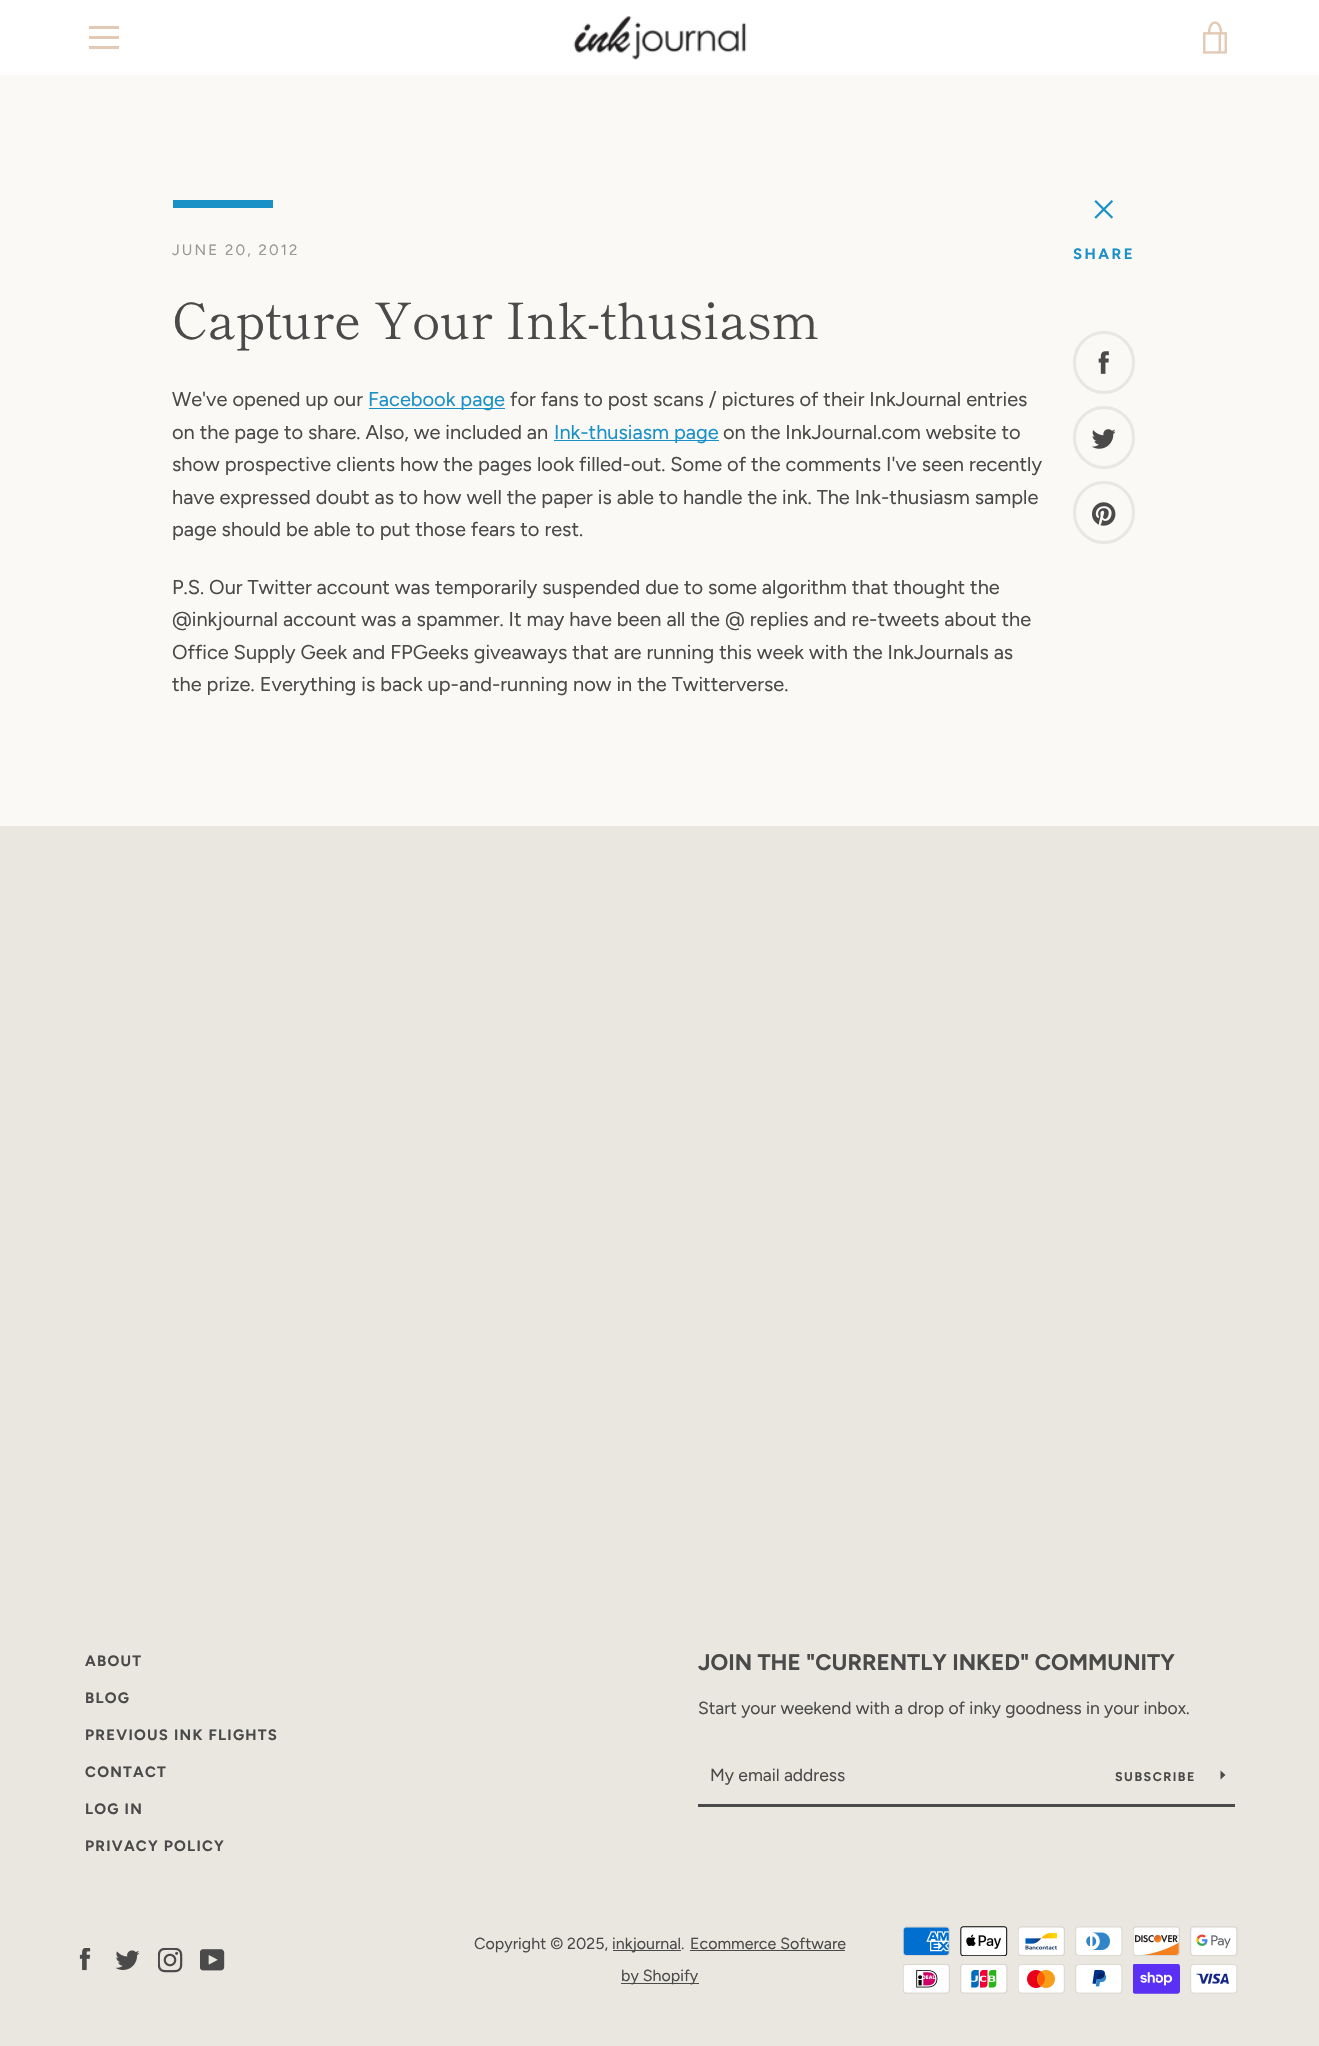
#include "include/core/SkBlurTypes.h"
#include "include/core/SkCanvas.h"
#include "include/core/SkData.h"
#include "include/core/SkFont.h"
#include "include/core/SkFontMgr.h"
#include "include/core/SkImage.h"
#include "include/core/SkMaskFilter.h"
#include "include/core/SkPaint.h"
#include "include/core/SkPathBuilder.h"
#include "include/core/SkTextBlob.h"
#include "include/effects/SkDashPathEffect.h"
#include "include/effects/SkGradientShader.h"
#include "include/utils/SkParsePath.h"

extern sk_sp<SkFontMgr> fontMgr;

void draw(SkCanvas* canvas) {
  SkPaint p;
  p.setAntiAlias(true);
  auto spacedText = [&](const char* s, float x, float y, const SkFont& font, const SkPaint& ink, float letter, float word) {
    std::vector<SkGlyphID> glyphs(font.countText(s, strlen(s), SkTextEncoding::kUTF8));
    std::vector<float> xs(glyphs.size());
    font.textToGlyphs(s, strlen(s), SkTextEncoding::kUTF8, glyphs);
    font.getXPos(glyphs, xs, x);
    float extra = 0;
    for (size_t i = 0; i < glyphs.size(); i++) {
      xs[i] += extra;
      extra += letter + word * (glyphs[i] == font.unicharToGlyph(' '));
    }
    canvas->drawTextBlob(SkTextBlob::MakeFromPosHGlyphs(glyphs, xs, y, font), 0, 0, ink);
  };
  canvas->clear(SkColorSetRGB(234, 231, 224));
  p.setColor(SkColorSetRGB(250, 249, 246));
  canvas->drawRect(SkRect::MakeLTRB(0, 75, 1319, 826), p);
  p.setColor(SK_ColorWHITE);
  canvas->drawRect(SkRect::MakeLTRB(0, 0, 1319, 75), p);
  p.setColor(SkColorSetRGB(225, 201, 180));
  canvas->drawRect(SkRect::MakeLTRB(89, 26, 119, 29), p);
  canvas->drawRect(SkRect::MakeLTRB(89, 36, 119, 39), p);
  canvas->drawRect(SkRect::MakeLTRB(89, 46, 119, 49), p);
  canvas->drawImageRect(SkImages::DeferredFromEncodedData(SkData::MakeFromFileName("images/1.png")), SkRect::MakeLTRB(573, 16, 747, 60), SkSamplingOptions());
  canvas->drawImageRect(SkImages::DeferredFromEncodedData(SkData::MakeFromFileName("images/2.png")), SkRect::MakeLTRB(1203, 21, 1227, 54), SkSamplingOptions());
  p.setColor(SkColorSetRGB(25, 144, 198));
  canvas->drawRect(SkRect::MakeLTRB(173, 200, 273, 208), p);
  canvas->drawRect(SkRect::MakeLTRB(369, 408, 505, 409), p);
  canvas->drawRect(SkRect::MakeLTRB(554, 440, 719, 441), p);
  canvas->drawImageRect(SkImages::DeferredFromEncodedData(SkData::MakeFromFileName("images/3.png")), SkRect::MakeLTRB(1094, 200, 1113, 219), SkSamplingOptions());
  p.setStyle(SkPaint::kStroke_Style);
  p.setStrokeWidth(3);
  p.setColor(SkColorSetRGB(232, 231, 229));
  canvas->drawRoundRect(SkRect::MakeLTRB(1074.5f, 332.5f, 1133.5f, 392.5f), 29.5f, 29.5f, p);
  canvas->drawImageRect(SkImages::DeferredFromEncodedData(SkData::MakeFromFileName("images/4.png")), SkRect::MakeLTRB(1098, 351, 1109, 374), SkSamplingOptions());
  canvas->drawRoundRect(SkRect::MakeLTRB(1074.5f, 407.5f, 1133.5f, 467.5f), 29.5f, 29.5f, p);
  canvas->drawImageRect(SkImages::DeferredFromEncodedData(SkData::MakeFromFileName("images/5.png")), SkRect::MakeLTRB(1091, 429, 1116, 449), SkSamplingOptions());
  canvas->drawRoundRect(SkRect::MakeLTRB(1074.5f, 482.5f, 1133.5f, 542.5f), 29.5f, 29.5f, p);
  canvas->drawImageRect(SkImages::DeferredFromEncodedData(SkData::MakeFromFileName("images/6.png")), SkRect::MakeLTRB(1092, 502, 1116, 526), SkSamplingOptions());
  p.setStyle(SkPaint::kFill_Style);
  p.setColor(SkColorSetRGB(74, 74, 74));
  canvas->drawRect(SkRect::MakeLTRB(698, 1804, 1235, 1807), p);
  canvas->drawPath(SkPathBuilder().moveTo(1225.5f, 1775).lineTo(1220.5f, 1779.5f).lineTo(1220.5f, 1770.5f).close().detach(), p);
  canvas->drawImageRect(SkImages::DeferredFromEncodedData(SkData::MakeFromFileName("images/7.png")), SkRect::MakeLTRB(79, 1948, 91, 1971), SkSamplingOptions());
  canvas->drawImageRect(SkImages::DeferredFromEncodedData(SkData::MakeFromFileName("images/8.png")), SkRect::MakeLTRB(115, 1950, 140, 1970), SkSamplingOptions());
  canvas->drawImageRect(SkImages::DeferredFromEncodedData(SkData::MakeFromFileName("images/9.png")), SkRect::MakeLTRB(158, 1948, 183, 1973), SkSamplingOptions());
  canvas->drawImageRect(SkImages::DeferredFromEncodedData(SkData::MakeFromFileName("images/10.png")), SkRect::MakeLTRB(200, 1949, 225, 1971), SkSamplingOptions());
  canvas->drawRect(SkRect::MakeLTRB(613, 1950, 681, 1951), p);
  canvas->drawRect(SkRect::MakeLTRB(690, 1950, 845, 1951), p);
  canvas->drawRect(SkRect::MakeLTRB(621, 1983, 699, 1984), p);
  canvas->drawImageRect(SkImages::DeferredFromEncodedData(SkData::MakeFromFileName("images/11.png")), SkRect::MakeLTRB(903, 1926, 950, 1956), SkSamplingOptions());
  canvas->drawImageRect(SkImages::DeferredFromEncodedData(SkData::MakeFromFileName("images/12.png")), SkRect::MakeLTRB(960, 1926, 1008, 1956), SkSamplingOptions());
  canvas->drawImageRect(SkImages::DeferredFromEncodedData(SkData::MakeFromFileName("images/13.png")), SkRect::MakeLTRB(1018, 1926, 1065, 1956), SkSamplingOptions());
  canvas->drawImageRect(SkImages::DeferredFromEncodedData(SkData::MakeFromFileName("images/14.png")), SkRect::MakeLTRB(1075, 1926, 1123, 1956), SkSamplingOptions());
  canvas->drawImageRect(SkImages::DeferredFromEncodedData(SkData::MakeFromFileName("images/15.png")), SkRect::MakeLTRB(1133, 1926, 1180, 1956), SkSamplingOptions());
  canvas->drawImageRect(SkImages::DeferredFromEncodedData(SkData::MakeFromFileName("images/16.png")), SkRect::MakeLTRB(1190, 1926, 1238, 1956), SkSamplingOptions());
  canvas->drawImageRect(SkImages::DeferredFromEncodedData(SkData::MakeFromFileName("images/17.png")), SkRect::MakeLTRB(903, 1964, 950, 1994), SkSamplingOptions());
  canvas->drawImageRect(SkImages::DeferredFromEncodedData(SkData::MakeFromFileName("images/18.png")), SkRect::MakeLTRB(960, 1964, 1008, 1994), SkSamplingOptions());
  canvas->drawImageRect(SkImages::DeferredFromEncodedData(SkData::MakeFromFileName("images/19.png")), SkRect::MakeLTRB(1018, 1964, 1065, 1994), SkSamplingOptions());
  canvas->drawImageRect(SkImages::DeferredFromEncodedData(SkData::MakeFromFileName("images/20.png")), SkRect::MakeLTRB(1075, 1964, 1123, 1994), SkSamplingOptions());
  canvas->drawImageRect(SkImages::DeferredFromEncodedData(SkData::MakeFromFileName("images/21.png")), SkRect::MakeLTRB(1133, 1964, 1180, 1994), SkSamplingOptions());
  canvas->drawImageRect(SkImages::DeferredFromEncodedData(SkData::MakeFromFileName("images/22.png")), SkRect::MakeLTRB(1190, 1964, 1238, 1994), SkSamplingOptions());
  SkFont font1(fontMgr->matchFamilyStyle("Figtree", SkFontStyle::Normal()), 15);
  font1.setSubpixel(true);
  p.setColor(SkColorSetRGB(151, 151, 151));
  spacedText("JUNE 20, 2012", 172, 255, font1, p, 2.1f, 0);
  SkFont font2(fontMgr->matchFamilyStyle("Shippori Mincho", SkFontStyle::Normal()), 50);
  font2.setSubpixel(true);
  p.setColor(SkColorSetRGB(74, 74, 74));
  canvas->drawString("Capture Your Ink-thusiasm", 172, 339, font2, p);
  SkFont font3(fontMgr->matchFamilyStyle("Figtree", SkFontStyle::Normal()), 20);
  font3.setSubpixel(true);
  canvas->drawString("We've opened up our", 172, 406, font3, p);
  p.setColor(SkColorSetRGB(25, 144, 198));
  canvas->drawString("Facebook page", 368, 406, font3, p);
  p.setColor(SkColorSetRGB(74, 74, 74));
  canvas->drawString("for fans to post scans / pictures of their InkJournal entries", 510, 406, font3, p);
  canvas->drawString("on the page to share. Also, we included an", 172, 439, font3, p);
  p.setColor(SkColorSetRGB(25, 144, 198));
  canvas->drawString("Ink-thusiasm page", 554, 439, font3, p);
  p.setColor(SkColorSetRGB(74, 74, 74));
  canvas->drawString("on the InkJournal.com website to", 723, 439, font3, p);
  canvas->drawString("show prospective clients how the pages look filled-out. Some of the comments I've seen recently", 172, 471, font3, p);
  canvas->drawString("have expressed doubt as to how well the paper is able to handle the ink. The Ink-thusiasm sample", 172, 504, font3, p);
  canvas->drawString("page should be able to put those fears to rest.", 172, 536, font3, p);
  canvas->drawString("P.S. Our Twitter account was temporarily suspended due to some algorithm that thought the", 172, 594, font3, p);
  canvas->drawString("@inkjournal account was a spammer. It may have been all the @ replies and re-tweets about the", 172, 626, font3, p);
  canvas->drawString("Office Supply Geek and FPGeeks giveaways that are running this week with the InkJournals as", 172, 659, font3, p);
  canvas->drawString("the prize. Everything is back up-and-running now in the Twitterverse.", 172, 691, font3, p);
  SkFont font4(fontMgr->matchFamilyStyle("Figtree", SkFontStyle::Bold()), 15);
  font4.setSubpixel(true);
  p.setColor(SkColorSetRGB(25, 144, 198));
  spacedText("SHARE", 1073, 259, font4, p, 2.5f, 0);
  p.setColor(SkColorSetRGB(74, 74, 74));
  spacedText("ABOUT", 85, 1666, font4, p, 1.25f, 0);
  spacedText("BLOG", 85, 1703, font4, p, 1.25f, 0);
  spacedText("PREVIOUS INK FLIGHTS", 85, 1740, font4, p, 1.25f, 0);
  spacedText("CONTACT", 85, 1777, font4, p, 1.25f, 0);
  spacedText("LOG IN", 85, 1814, font4, p, 1.25f, 0);
  spacedText("PRIVACY POLICY", 85, 1851, font4, p, 1.25f, 0);
  SkFont font5(fontMgr->matchFamilyStyle("Figtree", SkFontStyle::Bold()), 22.5f);
  font5.setSubpixel(true);
  canvas->drawString("JOIN THE \"CURRENTLY INKED\" COMMUNITY", 698, 1670, font5, p);
  SkFont font6(fontMgr->matchFamilyStyle("Figtree", SkFontStyle::Normal()), 17.5f);
  font6.setSubpixel(true);
  canvas->drawString("Start your weekend with a drop of inky goodness in your inbox.", 698, 1714, font6, p);
  canvas->drawString("My email address", 710, 1781, font6, p);
  SkFont font7(fontMgr->matchFamilyStyle("Figtree", SkFontStyle::Bold()), 12.5f);
  font7.setSubpixel(true);
  spacedText("SUBSCRIBE", 1115, 1781, font7, p, 1.5f, 0);
  SkFont font8(fontMgr->matchFamilyStyle("Figtree", SkFontStyle::Normal()), 16);
  font8.setSubpixel(true);
  canvas->drawString("Copyright © 2025,", 474, 1949, font8, p);
  canvas->drawString("inkjournal.", 612, 1949, font8, p);
  canvas->drawString("Ecommerce Software", 690, 1949, font8, p);
  canvas->drawString("by Shopify", 621, 1981, font8, p);
}
